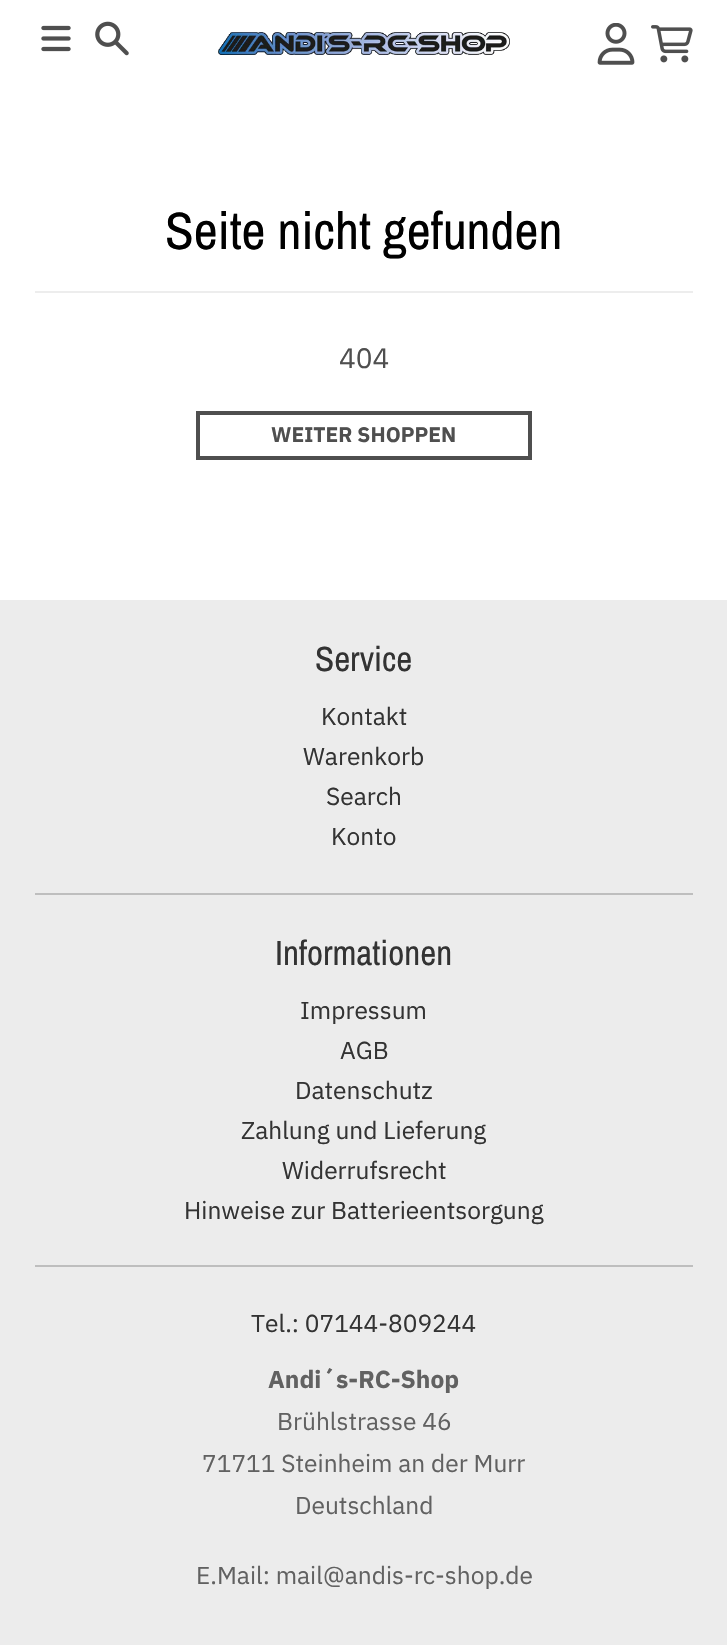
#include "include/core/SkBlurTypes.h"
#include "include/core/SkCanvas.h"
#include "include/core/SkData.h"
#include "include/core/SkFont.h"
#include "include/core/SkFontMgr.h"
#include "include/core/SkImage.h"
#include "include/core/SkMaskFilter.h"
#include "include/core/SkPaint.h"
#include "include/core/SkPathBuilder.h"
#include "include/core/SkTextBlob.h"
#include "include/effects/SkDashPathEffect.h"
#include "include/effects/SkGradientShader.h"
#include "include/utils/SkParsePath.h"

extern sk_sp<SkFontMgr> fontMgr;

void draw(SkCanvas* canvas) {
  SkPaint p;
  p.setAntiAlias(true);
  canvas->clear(SkColorSetRGB(236, 236, 236));
  p.setColor(SK_ColorWHITE);
  canvas->drawRect(SkRect::MakeLTRB(0, 0, 727, 600), p);
  canvas->drawImageRect(SkImages::DeferredFromEncodedData(SkData::MakeFromFileName("images/1.png")), SkRect::MakeLTRB(41, 25, 71, 52), SkSamplingOptions());
  canvas->drawImageRect(SkImages::DeferredFromEncodedData(SkData::MakeFromFileName("images/2.png")), SkRect::MakeLTRB(95, 21, 129, 56), SkSamplingOptions());
  canvas->drawImageRect(SkImages::DeferredFromEncodedData(SkData::MakeFromFileName("images/3.png")), SkRect::MakeLTRB(218, 32, 510, 55), SkSamplingOptions());
  canvas->drawImageRect(SkImages::DeferredFromEncodedData(SkData::MakeFromFileName("images/4.png")), SkRect::MakeLTRB(597, 23, 635, 65), SkSamplingOptions());
  canvas->drawImageRect(SkImages::DeferredFromEncodedData(SkData::MakeFromFileName("images/5.png")), SkRect::MakeLTRB(651, 25, 693, 63), SkSamplingOptions());
  p.setColor(SkColorSetRGB(237, 237, 237));
  canvas->drawRect(SkRect::MakeLTRB(35, 291, 693, 293), p);
  p.setStyle(SkPaint::kStroke_Style);
  p.setStrokeWidth(4);
  p.setColor(SkColorSetRGB(79, 79, 79));
  canvas->drawRect(SkRect::MakeLTRB(198, 413, 530, 458), p);
  p.setStyle(SkPaint::kFill_Style);
  p.setColor(SkColorSetRGB(190, 190, 190));
  canvas->drawRect(SkRect::MakeLTRB(35, 893, 693, 895), p);
  canvas->drawRect(SkRect::MakeLTRB(35, 1265, 693, 1267), p);
  SkFont font1(fontMgr->matchFamilyStyle("Archivo Narrow", SkFontStyle::Normal()), 52.5f);
  font1.setSubpixel(true);
  p.setColor(SK_ColorBLACK);
  canvas->drawString("Seite nicht gefunden", 165, 249, font1, p);
  SkFont font2(fontMgr->matchFamilyStyle("IBM Plex Sans", SkFontStyle::Normal()), 28);
  font2.setSubpixel(true);
  p.setColor(SkColorSetRGB(79, 79, 79));
  canvas->drawString("404", 339, 368, font2, p);
  SkFont font3(fontMgr->matchFamilyStyle("IBM Plex Sans", SkFontStyle::Bold()), 21);
  font3.setSubpixel(true);
  canvas->drawString("WEITER SHOPPEN", 271, 442, font3, p);
  SkFont font4(fontMgr->matchFamilyStyle("Archivo Narrow", SkFontStyle::Normal()), 35);
  font4.setSubpixel(true);
  p.setColor(SkColorSetRGB(51, 51, 51));
  canvas->drawString("Service", 315, 671, font4, p);
  SkFont font5(fontMgr->matchFamilyStyle("IBM Plex Sans", SkFontStyle::Normal()), 24.5f);
  font5.setSubpixel(true);
  canvas->drawString("Kontakt", 321, 725, font5, p);
  canvas->drawString("Warenkorb", 303, 765, font5, p);
  canvas->drawString("Search", 326, 805, font5, p);
  canvas->drawString("Konto", 331, 845, font5, p);
  canvas->drawString("Informationen", 275, 965, font4, p);
  canvas->drawString("Impressum", 300, 1019, font5, p);
  canvas->drawString("AGB", 340, 1059, font5, p);
  canvas->drawString("Datenschutz", 295, 1099, font5, p);
  canvas->drawString("Zahlung und Lieferung", 241, 1139, font5, p);
  canvas->drawString("Widerrufsrecht", 282, 1179, font5, p);
  canvas->drawString("Hinweise zur Batterieentsorgung", 184, 1219, font5, p);
  canvas->drawString("Tel.: 07144-809244", 251, 1332, font5, p);
  SkFont font6(fontMgr->matchFamilyStyle("IBM Plex Sans", SkFontStyle::Bold()), 24.5f);
  font6.setSubpixel(true);
  p.setColor(SkColorSetRGB(97, 97, 97));
  canvas->drawString("Andi´s-RC-Shop", 268, 1388, font6, p);
  canvas->drawString("Brühlstrasse 46", 277, 1430, font5, p);
  canvas->drawString("71711 Steinheim an der Murr", 202, 1472, font5, p);
  canvas->drawString("Deutschland", 295, 1514, font5, p);
  canvas->drawString("E.Mail: mail@andis-rc-shop.de", 196, 1584, font5, p);
}
